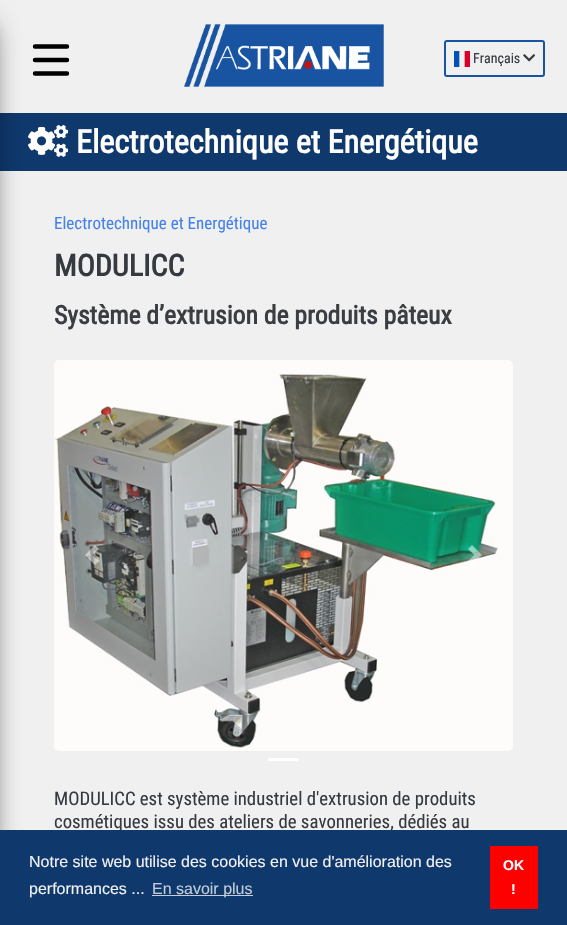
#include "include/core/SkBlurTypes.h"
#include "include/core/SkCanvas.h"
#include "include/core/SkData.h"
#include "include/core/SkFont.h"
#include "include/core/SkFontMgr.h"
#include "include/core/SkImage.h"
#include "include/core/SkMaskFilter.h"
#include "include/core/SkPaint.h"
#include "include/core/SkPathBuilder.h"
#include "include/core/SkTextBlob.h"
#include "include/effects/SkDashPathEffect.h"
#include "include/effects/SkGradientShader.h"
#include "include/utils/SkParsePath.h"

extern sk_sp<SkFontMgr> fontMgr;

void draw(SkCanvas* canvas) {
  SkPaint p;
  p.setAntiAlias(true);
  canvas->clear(SkColorSetRGB(240, 240, 240));
  p.setColor(SkColorSetRGB(15, 56, 109));
  canvas->drawRect(SkRect::MakeLTRB(0, 113, 567, 171), p);
  canvas->drawImageRect(SkImages::DeferredFromEncodedData(SkData::MakeFromFileName("images/4.png")), SkRect::MakeLTRB(28, 125, 69, 157), SkSamplingOptions());
  p.setColor(SkColorSetARGB(191, 0, 0, 0));
  p.setMaskFilter(SkMaskFilter::MakeBlur(kNormal_SkBlurStyle, 14));
  canvas->drawRect(SkRect::MakeLTRB(-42, 27, -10, 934), p);
  p.setMaskFilter(nullptr);
  p.setStyle(SkPaint::kStroke_Style);
  p.setStrokeWidth(4.4f);
  p.setStrokeCap(SkPaint::kRound_Cap);
  p.setColor(SK_ColorBLACK);
  canvas->drawPath(SkPathBuilder().moveTo(35, 46.5f).lineTo(67, 46.5f).moveTo(35, 60).lineTo(67, 60).moveTo(67, 73.5f).lineTo(35, 73.5f).detach(), p);
  canvas->drawImageRect(SkImages::DeferredFromEncodedData(SkData::MakeFromFileName("images/1.png")), SkRect::MakeLTRB(183, 23, 384, 87), SkSamplingOptions());
  p.setStrokeWidth(2);
  p.setStrokeCap(SkPaint::kButt_Cap);
  p.setColor(SkColorSetRGB(25, 84, 162));
  canvas->drawRoundRect(SkRect::MakeLTRB(445, 41, 544, 76), 2, 2, p);
  canvas->drawImageRect(SkImages::DeferredFromEncodedData(SkData::MakeFromFileName("images/2.png")), SkRect::MakeLTRB(454, 51, 470, 67), SkSamplingOptions());
  canvas->drawImageRect(SkImages::DeferredFromEncodedData(SkData::MakeFromFileName("images/3.png")), SkRect::MakeLTRB(523, 54, 535, 62), SkSamplingOptions());
  canvas->drawImageRect(SkImages::DeferredFromEncodedData(SkData::MakeFromFileName("images/5.png")), SkRect::MakeLTRB(54, 360, 513, 751), SkSamplingOptions());
  p.setStyle(SkPaint::kFill_Style);
  p.setColor(SkColorSetARGB(128, 255, 255, 255));
  canvas->drawPath(SkPathBuilder().moveTo(95, 545).lineTo(85, 555).lineTo(95, 565).lineTo(99, 561).lineTo(92.5f, 555).lineTo(99, 549).close().detach(), p);
  canvas->drawPath(SkPathBuilder().moveTo(472, 545).lineTo(468, 549).lineTo(474.5f, 555).lineTo(468, 561).lineTo(472, 565).lineTo(482, 555).close().detach(), p);
  p.setColor(SK_ColorWHITE);
  canvas->drawRect(SkRect::MakeLTRB(268, 758, 298, 761), p);
  SkFont font1(fontMgr->matchFamilyStyle("Roboto Condensed", SkFontStyle::Normal()), 14);
  font1.setSubpixel(true);
  p.setColor(SkColorSetRGB(52, 58, 64));
  canvas->drawString("Français", 473, 63, font1, p);
  SkFont font2(fontMgr->matchFamilyStyle("Roboto Condensed", SkFontStyle::Bold()), 32);
  font2.setSubpixel(true);
  p.setColor(SK_ColorWHITE);
  canvas->drawString("Electrotechnique et Energétique", 76, 153, font2, p);
  SkFont font3(fontMgr->matchFamilyStyle("Roboto Condensed", SkFontStyle::Normal()), 17);
  font3.setSubpixel(true);
  p.setColor(SkColorSetRGB(69, 130, 236));
  canvas->drawString("Electrotechnique et Energétique", 54, 229, font3, p);
  SkFont font4(fontMgr->matchFamilyStyle("Roboto Condensed", SkFontStyle::Bold()), 30);
  font4.setSubpixel(true);
  p.setColor(SkColorSetRGB(52, 58, 64));
  canvas->drawString("MODULICC", 54, 276, font4, p);
  SkFont font5(fontMgr->matchFamilyStyle("Roboto Condensed", SkFontStyle::Bold()), 25.6f);
  font5.setSubpixel(true);
  p.setColor(SkColorSetRGB(58, 62, 66));
  canvas->drawString("Système d’extrusion de produits pâteux", 54, 324, font5, p);
  SkFont font6(fontMgr->matchFamilyStyle("Roboto Condensed", SkFontStyle::Normal()), 18.75f);
  font6.setSubpixel(true);
  p.setColor(SkColorSetRGB(52, 58, 64));
  canvas->drawString("MODULICC est système industriel d'extrusion de produits", 54, 805, font6, p);
  canvas->drawString("cosmétiques issu des ateliers de savonneries, dédiés au", 54, 828, font6, p);
  p.setColor(SkColorSetRGB(15, 56, 109));
  canvas->drawRect(SkRect::MakeLTRB(0, 830, 567, 925), p);
  SkFont font7(fontMgr->matchFamilyStyle("Liberation Sans", SkFontStyle::Normal()), 16);
  font7.setSubpixel(true);
  p.setColor(SkColorSetRGB(242, 242, 242));
  canvas->drawString("Notre site web utilise des cookies en vue d'amélioration des", 29, 867, font7, p);
  canvas->drawString("performances ...", 29, 894, font7, p);
  p.setColor(SkColorSetRGB(197, 205, 215));
  canvas->drawRect(SkRect::MakeLTRB(152, 895, 253, 896), p);
  canvas->drawString("En savoir plus", 152, 894, font7, p);
  p.setColor(SkColorSetRGB(255, 0, 0));
  canvas->drawRect(SkRect::MakeLTRB(490, 846, 538, 909), p);
  SkFont font8(fontMgr->matchFamilyStyle("Liberation Sans", SkFontStyle::Bold()), 14);
  font8.setSubpixel(true);
  p.setColor(SK_ColorWHITE);
  canvas->drawString("OK", 503, 870, font8, p);
  canvas->drawString("!", 511, 894, font8, p);
}
